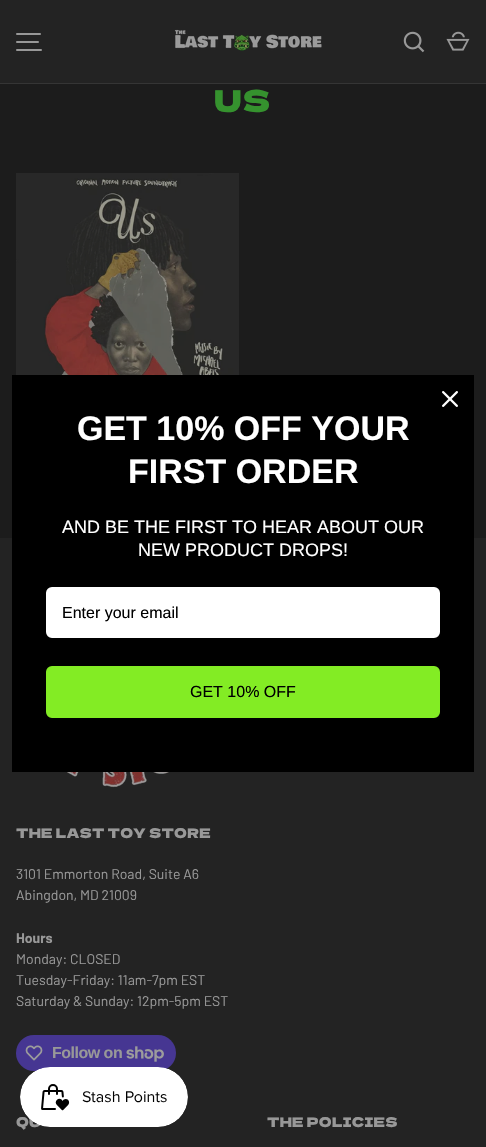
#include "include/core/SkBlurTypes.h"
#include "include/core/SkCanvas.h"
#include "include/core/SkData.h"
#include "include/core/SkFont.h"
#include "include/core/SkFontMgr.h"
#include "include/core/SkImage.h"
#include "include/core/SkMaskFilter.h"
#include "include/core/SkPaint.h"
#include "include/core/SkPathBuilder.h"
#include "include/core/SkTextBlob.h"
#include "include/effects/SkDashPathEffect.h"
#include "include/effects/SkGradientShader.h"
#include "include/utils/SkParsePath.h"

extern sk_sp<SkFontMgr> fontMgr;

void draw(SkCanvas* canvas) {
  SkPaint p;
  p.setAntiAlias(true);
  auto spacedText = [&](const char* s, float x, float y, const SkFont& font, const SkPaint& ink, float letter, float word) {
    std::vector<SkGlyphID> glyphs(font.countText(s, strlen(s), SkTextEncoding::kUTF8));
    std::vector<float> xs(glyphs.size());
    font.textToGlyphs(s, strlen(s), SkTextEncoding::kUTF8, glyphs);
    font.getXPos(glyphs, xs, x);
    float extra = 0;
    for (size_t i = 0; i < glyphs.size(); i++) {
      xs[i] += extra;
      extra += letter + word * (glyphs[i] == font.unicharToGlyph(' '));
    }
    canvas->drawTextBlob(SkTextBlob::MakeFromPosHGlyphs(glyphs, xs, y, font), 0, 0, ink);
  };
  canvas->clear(SkColorSetRGB(28, 28, 28));
  p.setColor(SkColorSetRGB(35, 35, 35));
  canvas->drawRect(SkRect::MakeLTRB(0, 0, 486, 83), p);
  p.setColor(SkColorSetRGB(53, 53, 53));
  canvas->drawRect(SkRect::MakeLTRB(0, 83, 486, 84), p);
  p.setColor(SkColorSetRGB(152, 152, 152));
  canvas->drawRoundRect(SkRect::MakeLTRB(16, 33, 41, 35), 1, 1, p);
  canvas->drawRoundRect(SkRect::MakeLTRB(16, 41, 39, 43), 1, 1, p);
  canvas->drawRoundRect(SkRect::MakeLTRB(16, 49, 42, 51), 1, 1, p);
  canvas->drawImageRect(SkImages::DeferredFromEncodedData(SkData::MakeFromFileName("images/1.png")), SkRect::MakeLTRB(174, 29, 322, 51), SkSamplingOptions());
  canvas->drawImageRect(SkImages::DeferredFromEncodedData(SkData::MakeFromFileName("images/2.png")), SkRect::MakeLTRB(403, 31, 425, 53), SkSamplingOptions());
  canvas->drawImageRect(SkImages::DeferredFromEncodedData(SkData::MakeFromFileName("images/3.png")), SkRect::MakeLTRB(446, 31, 470, 51), SkSamplingOptions());
  canvas->drawImageRect(SkImages::DeferredFromEncodedData(SkData::MakeFromFileName("images/4.png")), SkRect::MakeLTRB(16, 173, 239, 375), SkSamplingOptions());
  p.setColor(SkColorSetRGB(35, 35, 35));
  canvas->drawRect(SkRect::MakeLTRB(0, 538, 486, 1147), p);
  p.setColor(SK_ColorBLACK);
  canvas->drawRect(SkRect::MakeLTRB(12, 375, 474, 772), p);
  canvas->drawImageRect(SkImages::DeferredFromEncodedData(SkData::MakeFromFileName("images/5.png")), SkRect::MakeLTRB(442, 391, 458, 407), SkSamplingOptions());
  p.setColor(SK_ColorWHITE);
  canvas->drawRoundRect(SkRect::MakeLTRB(45, 586, 441, 639), 7, 7, p);
  p.setStyle(SkPaint::kStroke_Style);
  p.setStrokeWidth(2);
  p.setColor(SK_ColorBLACK);
  canvas->drawRoundRect(SkRect::MakeLTRB(45, 586, 441, 639), 7, 7, p);
  p.setStyle(SkPaint::kFill_Style);
  p.setColor(SkColorSetRGB(131, 236, 36));
  canvas->drawRoundRect(SkRect::MakeLTRB(45, 665, 441, 719), 7, 7, p);
  p.setStyle(SkPaint::kStroke_Style);
  p.setColor(SK_ColorBLACK);
  canvas->drawRoundRect(SkRect::MakeLTRB(45, 665, 441, 719), 7, 7, p);
  canvas->drawImageRect(SkImages::DeferredFromEncodedData(SkData::MakeFromFileName("images/6.png")), SkRect::MakeLTRB(67, 772, 169, 788), SkSamplingOptions());
  p.setStyle(SkPaint::kFill_Style);
  p.setColor(SkColorSetRGB(70, 54, 146));
  canvas->drawRoundRect(SkRect::MakeLTRB(16, 1035, 176, 1071), 18, 18, p);
  canvas->drawImageRect(SkImages::DeferredFromEncodedData(SkData::MakeFromFileName("images/7.png")), SkRect::MakeLTRB(25, 1045, 43, 1061), SkSamplingOptions());
  canvas->drawImageRect(SkImages::DeferredFromEncodedData(SkData::MakeFromFileName("images/8.png")), SkRect::MakeLTRB(126, 1046, 164, 1062), SkSamplingOptions());
  SkFont font1(fontMgr->matchFamilyStyle("Dela Gothic One", SkFontStyle::Normal()), 30);
  font1.setSubpixel(true);
  p.setColor(SkColorSetRGB(53, 146, 46));
  spacedText("US", 214, 112, font1, p, 1, 0);
  SkFont font2(fontMgr->matchFamilyStyle("Liberation Sans", SkFontStyle::Bold()), 34);
  font2.setSubpixel(true);
  p.setColor(SK_ColorWHITE);
  canvas->drawString("GET 10% OFF YOUR", 77, 440, font2, p);
  canvas->drawString("FIRST ORDER", 128, 483, font2, p);
  SkFont font3(fontMgr->matchFamilyStyle("Liberation Sans", SkFontStyle::Normal()), 18);
  font3.setSubpixel(true);
  canvas->drawString("AND BE THE FIRST TO HEAR ABOUT OUR", 62, 533, font3, p);
  canvas->drawString("NEW PRODUCT DROPS!", 138, 556, font3, p);
  SkFont font4(fontMgr->matchFamilyStyle("Liberation Sans", SkFontStyle::Normal()), 16);
  font4.setSubpixel(true);
  p.setColor(SK_ColorBLACK);
  canvas->drawString("Enter your email", 62, 618, font4, p);
  canvas->drawString("GET 10% OFF", 190, 697, font4, p);
  SkFont font5(fontMgr->matchFamilyStyle("Dela Gothic One", SkFontStyle::Normal()), 13.25f);
  font5.setSubpixel(true);
  p.setColor(SkColorSetRGB(152, 152, 152));
  spacedText("THE LAST TOY STORE", 16, 838, font5, p, 0.25f, 0);
  SkFont font6(fontMgr->matchFamilyStyle("Barlow", SkFontStyle::Normal()), 14);
  font6.setSubpixel(true);
  canvas->drawString("3101 Emmorton Road, Suite A6", 16, 879, font6, p);
  canvas->drawString("Abingdon, MD 21009", 16, 900, font6, p);
  SkFont font7(fontMgr->matchFamilyStyle("Barlow", SkFontStyle::Bold()), 14);
  font7.setSubpixel(true);
  canvas->drawString("Hours", 16, 943, font7, p);
  canvas->drawString("Monday: CLOSED", 16, 964, font6, p);
  canvas->drawString("Tuesday-Friday: 11am-7pm EST", 16, 985, font6, p);
  canvas->drawString("Saturday & Sunday: 12pm-5pm EST", 16, 1006, font6, p);
  SkFont font8(fontMgr->matchFamilyStyle("Liberation Sans", SkFontStyle::Bold()), 16);
  font8.setSubpixel(true);
  spacedText("Follow on", 52, 1058, font8, p, -0.5f, 0);
  spacedText("QU", 16, 1127, font5, p, 0.25f, 0);
  spacedText("THE POLICIES", 267, 1127, font5, p, 0.25f, 0);
  canvas->drawImageRect(SkImages::DeferredFromEncodedData(SkData::MakeFromFileName("images/9.png")), SkRect::MakeLTRB(20, 1067, 188, 1127), SkSamplingOptions());
}
